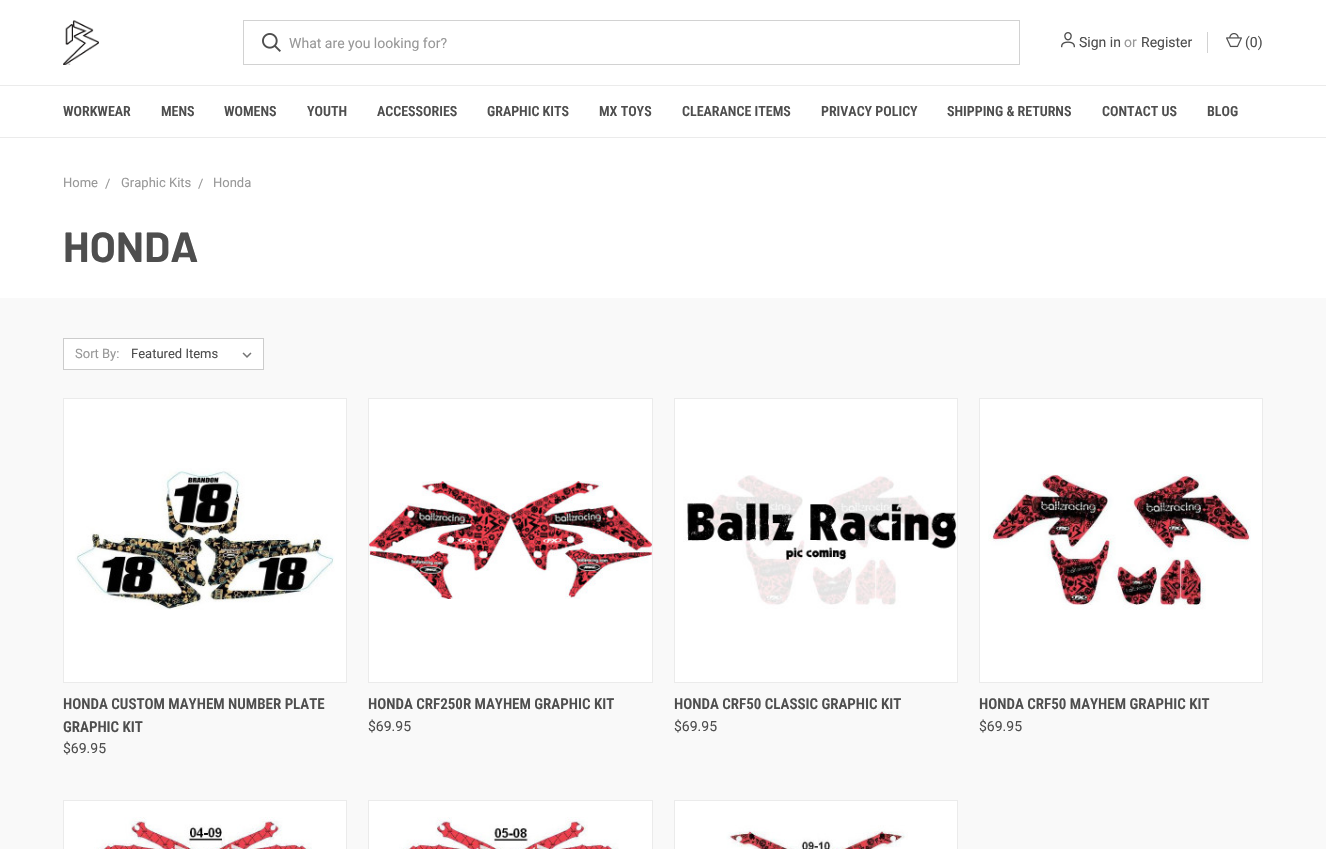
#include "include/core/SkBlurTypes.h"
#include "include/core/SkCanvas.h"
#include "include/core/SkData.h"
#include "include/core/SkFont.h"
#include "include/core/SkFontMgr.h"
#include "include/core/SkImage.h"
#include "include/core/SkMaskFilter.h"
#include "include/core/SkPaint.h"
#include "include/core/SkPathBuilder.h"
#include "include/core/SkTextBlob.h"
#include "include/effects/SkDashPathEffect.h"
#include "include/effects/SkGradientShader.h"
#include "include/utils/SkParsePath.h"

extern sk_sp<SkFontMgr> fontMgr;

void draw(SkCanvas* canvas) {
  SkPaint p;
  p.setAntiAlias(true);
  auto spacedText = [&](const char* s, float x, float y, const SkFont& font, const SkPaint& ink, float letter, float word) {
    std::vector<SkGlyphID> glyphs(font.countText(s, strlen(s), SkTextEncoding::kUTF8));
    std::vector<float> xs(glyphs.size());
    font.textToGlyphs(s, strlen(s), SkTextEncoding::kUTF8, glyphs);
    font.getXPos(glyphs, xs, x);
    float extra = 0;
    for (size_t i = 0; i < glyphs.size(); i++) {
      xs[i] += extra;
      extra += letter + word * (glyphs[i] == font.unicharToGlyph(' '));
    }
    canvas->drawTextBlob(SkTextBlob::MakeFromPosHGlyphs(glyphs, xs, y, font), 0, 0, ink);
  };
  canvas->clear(SK_ColorWHITE);
  canvas->drawImageRect(SkImages::DeferredFromEncodedData(SkData::MakeFromFileName("images/1.png")), SkRect::MakeLTRB(63, 20, 99, 65), SkSamplingOptions());
  p.setStyle(SkPaint::kStroke_Style);
  p.setStrokeWidth(1);
  p.setColor(SkColorSetRGB(210, 210, 210));
  canvas->drawRect(SkRect::MakeLTRB(243.5f, 20.5f, 1019.5f, 64.5f), p);
  canvas->drawImageRect(SkImages::DeferredFromEncodedData(SkData::MakeFromFileName("images/2.png")), SkRect::MakeLTRB(262, 33, 281, 52), SkSamplingOptions());
  canvas->drawImageRect(SkImages::DeferredFromEncodedData(SkData::MakeFromFileName("images/3.png")), SkRect::MakeLTRB(1061, 32, 1075, 48), SkSamplingOptions());
  p.setStyle(SkPaint::kFill_Style);
  canvas->drawRect(SkRect::MakeLTRB(1207, 32, 1208, 53), p);
  canvas->drawImageRect(SkImages::DeferredFromEncodedData(SkData::MakeFromFileName("images/4.png")), SkRect::MakeLTRB(1226, 33, 1242, 48), SkSamplingOptions());
  p.setColor(SkColorSetRGB(235, 235, 235));
  canvas->drawRect(SkRect::MakeLTRB(0, 85, 1326, 86), p);
  canvas->drawRect(SkRect::MakeLTRB(0, 137, 1326, 138), p);
  p.setColor(SkColorSetRGB(249, 249, 249));
  canvas->drawRect(SkRect::MakeLTRB(0, 298, 1326, 849), p);
  p.setColor(SK_ColorWHITE);
  canvas->drawRect(SkRect::MakeLTRB(63.5f, 338.5f, 263.5f, 369.5f), p);
  p.setStyle(SkPaint::kStroke_Style);
  p.setColor(SkColorSetRGB(204, 204, 204));
  canvas->drawRect(SkRect::MakeLTRB(63.5f, 338.5f, 263.5f, 369.5f), p);
  canvas->drawImageRect(SkImages::DeferredFromEncodedData(SkData::MakeFromFileName("images/5.png")), SkRect::MakeLTRB(242, 352, 252, 358), SkSamplingOptions());
  p.setStyle(SkPaint::kFill_Style);
  p.setColor(SK_ColorWHITE);
  canvas->drawRect(SkRect::MakeLTRB(63.5f, 398.5f, 346.5f, 682.5f), p);
  p.setStyle(SkPaint::kStroke_Style);
  p.setColor(SkColorSetRGB(235, 235, 235));
  canvas->drawRect(SkRect::MakeLTRB(63.5f, 398.5f, 346.5f, 682.5f), p);
  canvas->drawImageRect(SkImages::DeferredFromEncodedData(SkData::MakeFromFileName("images/6.png")), SkRect::MakeLTRB(75, 468, 335, 610), SkSamplingOptions());
  p.setStyle(SkPaint::kFill_Style);
  p.setColor(SK_ColorWHITE);
  canvas->drawRect(SkRect::MakeLTRB(368.5f, 398.5f, 652.5f, 682.5f), p);
  p.setStyle(SkPaint::kStroke_Style);
  p.setColor(SkColorSetRGB(235, 235, 235));
  canvas->drawRect(SkRect::MakeLTRB(368.5f, 398.5f, 652.5f, 682.5f), p);
  canvas->drawImageRect(SkImages::DeferredFromEncodedData(SkData::MakeFromFileName("images/7.png")), SkRect::MakeLTRB(369, 481, 652, 599), SkSamplingOptions());
  p.setStyle(SkPaint::kFill_Style);
  p.setColor(SK_ColorWHITE);
  canvas->drawRect(SkRect::MakeLTRB(674.5f, 398.5f, 957.5f, 682.5f), p);
  p.setStyle(SkPaint::kStroke_Style);
  p.setColor(SkColorSetRGB(235, 235, 235));
  canvas->drawRect(SkRect::MakeLTRB(674.5f, 398.5f, 957.5f, 682.5f), p);
  canvas->drawImageRect(SkImages::DeferredFromEncodedData(SkData::MakeFromFileName("images/8.png")), SkRect::MakeLTRB(683, 475, 957, 609), SkSamplingOptions());
  p.setStyle(SkPaint::kFill_Style);
  p.setColor(SK_ColorWHITE);
  canvas->drawRect(SkRect::MakeLTRB(979.5f, 398.5f, 1262.5f, 682.5f), p);
  p.setStyle(SkPaint::kStroke_Style);
  p.setColor(SkColorSetRGB(235, 235, 235));
  canvas->drawRect(SkRect::MakeLTRB(979.5f, 398.5f, 1262.5f, 682.5f), p);
  canvas->drawImageRect(SkImages::DeferredFromEncodedData(SkData::MakeFromFileName("images/9.png")), SkRect::MakeLTRB(988, 474, 1251, 610), SkSamplingOptions());
  p.setStyle(SkPaint::kFill_Style);
  p.setColor(SK_ColorWHITE);
  canvas->drawRect(SkRect::MakeLTRB(63.5f, 800.5f, 346.5f, 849.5f), p);
  p.setStyle(SkPaint::kStroke_Style);
  p.setColor(SkColorSetRGB(235, 235, 235));
  canvas->drawRect(SkRect::MakeLTRB(63.5f, 800.5f, 346.5f, 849.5f), p);
  canvas->drawImageRect(SkImages::DeferredFromEncodedData(SkData::MakeFromFileName("images/10.png")), SkRect::MakeLTRB(94, 817, 312, 849), SkSamplingOptions());
  p.setStyle(SkPaint::kFill_Style);
  p.setColor(SK_ColorWHITE);
  canvas->drawRect(SkRect::MakeLTRB(368.5f, 800.5f, 652.5f, 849.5f), p);
  p.setStyle(SkPaint::kStroke_Style);
  p.setColor(SkColorSetRGB(235, 235, 235));
  canvas->drawRect(SkRect::MakeLTRB(368.5f, 800.5f, 652.5f, 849.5f), p);
  canvas->drawImageRect(SkImages::DeferredFromEncodedData(SkData::MakeFromFileName("images/11.png")), SkRect::MakeLTRB(399, 817, 619, 849), SkSamplingOptions());
  p.setStyle(SkPaint::kFill_Style);
  p.setColor(SK_ColorWHITE);
  canvas->drawRect(SkRect::MakeLTRB(674.5f, 800.5f, 957.5f, 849.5f), p);
  p.setStyle(SkPaint::kStroke_Style);
  p.setColor(SkColorSetRGB(235, 235, 235));
  canvas->drawRect(SkRect::MakeLTRB(674.5f, 800.5f, 957.5f, 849.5f), p);
  canvas->drawImageRect(SkImages::DeferredFromEncodedData(SkData::MakeFromFileName("images/12.png")), SkRect::MakeLTRB(726, 825, 908, 849), SkSamplingOptions());
  SkFont font1(fontMgr->matchFamilyStyle("Roboto", SkFontStyle::Normal()), 14);
  font1.setSubpixel(true);
  p.setStyle(SkPaint::kFill_Style);
  p.setColor(SkColorSetRGB(152, 152, 152));
  canvas->drawString("What are you looking for?", 289, 48, font1, p);
  p.setColor(SkColorSetRGB(78, 78, 78));
  canvas->drawString("Sign in", 1079, 47, font1, p);
  p.setColor(SkColorSetRGB(152, 152, 152));
  canvas->drawString("or", 1124, 47, font1, p);
  p.setColor(SkColorSetRGB(78, 78, 78));
  canvas->drawString("Register", 1141, 47, font1, p);
  canvas->drawString("(0)", 1245, 47, font1, p);
  SkFont font2(fontMgr->matchFamilyStyle("Roboto Condensed", SkFontStyle(600, SkFontStyle::kNormal_Width, SkFontStyle::kUpright_Slant)), 14);
  font2.setSubpixel(true);
  canvas->drawString("WORKWEAR", 63, 116, font2, p);
  canvas->drawString("MENS", 161, 116, font2, p);
  canvas->drawString("WOMENS", 224, 116, font2, p);
  canvas->drawString("YOUTH", 307, 116, font2, p);
  canvas->drawString("ACCESSORIES", 377, 116, font2, p);
  canvas->drawString("GRAPHIC KITS", 487, 116, font2, p);
  canvas->drawString("MX TOYS", 599, 116, font2, p);
  canvas->drawString("CLEARANCE ITEMS", 682, 116, font2, p);
  canvas->drawString("PRIVACY POLICY", 821, 116, font2, p);
  canvas->drawString("SHIPPING & RETURNS", 947, 116, font2, p);
  canvas->drawString("CONTACT US", 1102, 116, font2, p);
  canvas->drawString("BLOG", 1207, 116, font2, p);
  SkFont font3(fontMgr->matchFamilyStyle("Roboto", SkFontStyle::Normal()), 13);
  font3.setSubpixel(true);
  p.setColor(SkColorSetRGB(152, 152, 152));
  canvas->drawString("Home", 63, 187, font3, p);
  canvas->drawString("/", 105, 188, font3, p);
  canvas->drawString("Graphic Kits", 121, 187, font3, p);
  canvas->drawString("/", 198, 188, font3, p);
  canvas->drawString("Honda", 213, 187, font3, p);
  SkFont font4(fontMgr->matchFamilyStyle("Barlow", SkFontStyle::Bold()), 42);
  font4.setSubpixel(true);
  p.setColor(SkColorSetRGB(78, 78, 78));
  spacedText("HONDA", 63, 262, font4, p, 0.25f, 0);
  p.setColor(SkColorSetRGB(152, 152, 152));
  canvas->drawString("Sort By:", 75, 358, font3, p);
  p.setColor(SkColorSetRGB(78, 78, 78));
  canvas->drawString("Featured Items", 131, 358, font3, p);
  SkFont font5(fontMgr->matchFamilyStyle("Roboto Condensed", SkFontStyle(600, SkFontStyle::kNormal_Width, SkFontStyle::kUpright_Slant)), 15);
  font5.setSubpixel(true);
  canvas->drawString("HONDA CUSTOM MAYHEM NUMBER PLATE", 63, 709, font5, p);
  canvas->drawString("GRAPHIC KIT", 63, 732, font5, p);
  canvas->drawString("$69.95", 63, 753, font1, p);
  canvas->drawString("HONDA CRF250R MAYHEM GRAPHIC KIT", 368, 709, font5, p);
  canvas->drawString("$69.95", 368, 731, font1, p);
  canvas->drawString("HONDA CRF50 CLASSIC GRAPHIC KIT", 674, 709, font5, p);
  canvas->drawString("$69.95", 674, 731, font1, p);
  canvas->drawString("HONDA CRF50 MAYHEM GRAPHIC KIT", 979, 709, font5, p);
  canvas->drawString("$69.95", 979, 731, font1, p);
}
